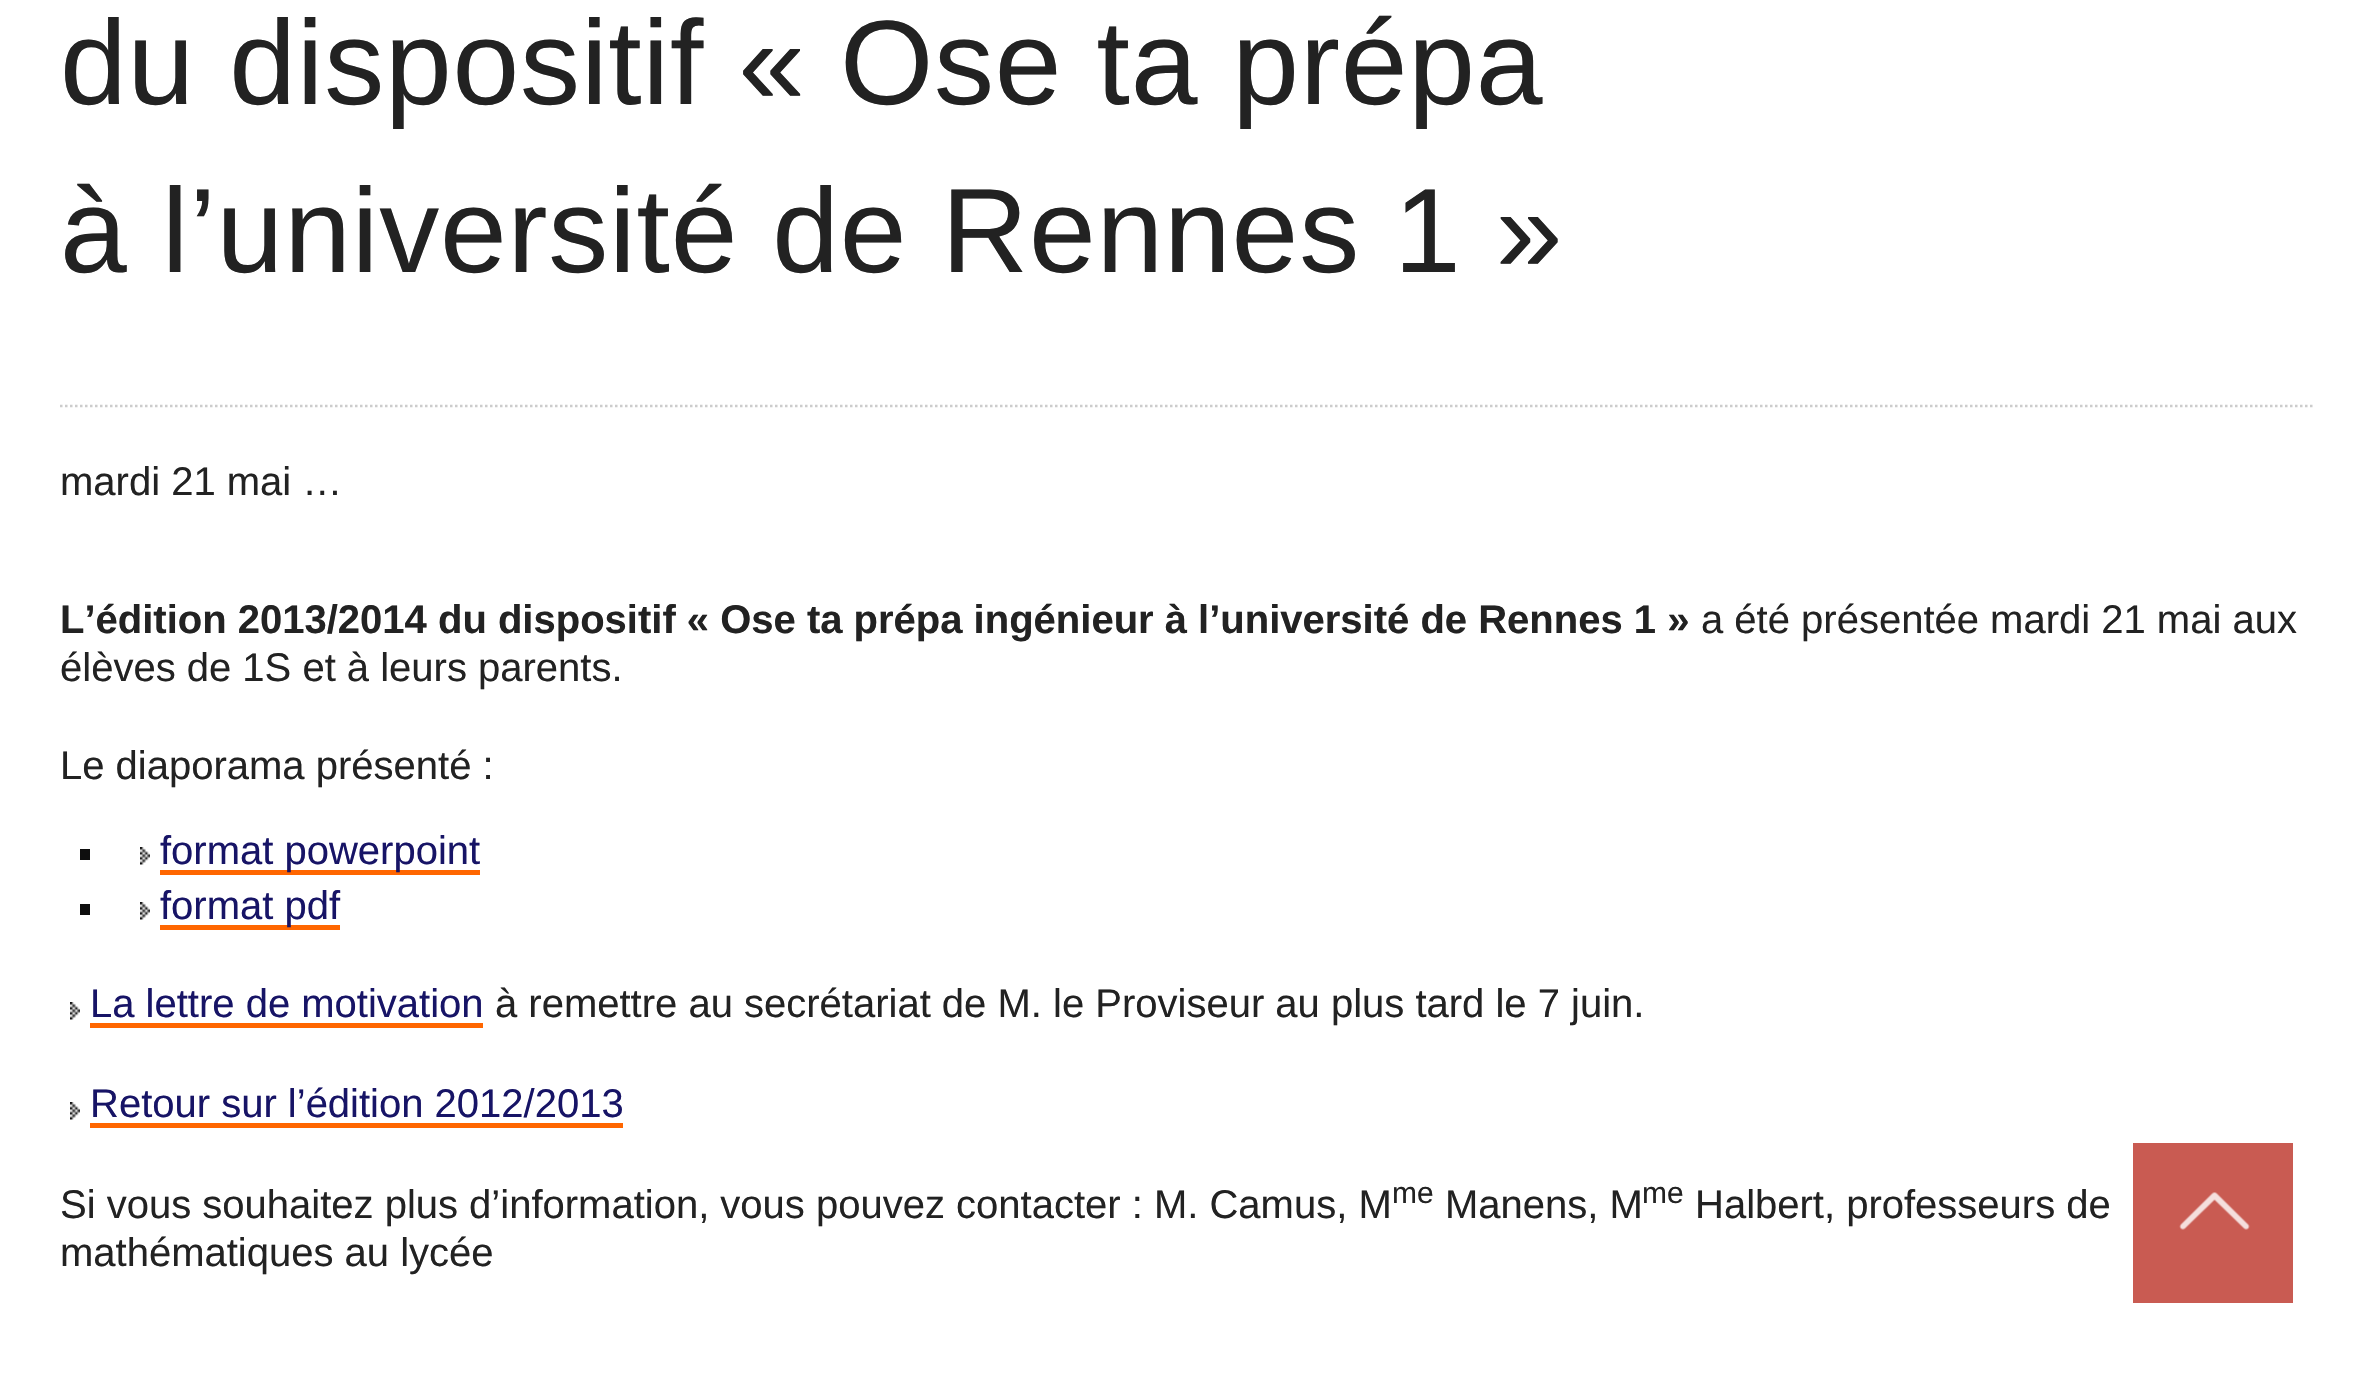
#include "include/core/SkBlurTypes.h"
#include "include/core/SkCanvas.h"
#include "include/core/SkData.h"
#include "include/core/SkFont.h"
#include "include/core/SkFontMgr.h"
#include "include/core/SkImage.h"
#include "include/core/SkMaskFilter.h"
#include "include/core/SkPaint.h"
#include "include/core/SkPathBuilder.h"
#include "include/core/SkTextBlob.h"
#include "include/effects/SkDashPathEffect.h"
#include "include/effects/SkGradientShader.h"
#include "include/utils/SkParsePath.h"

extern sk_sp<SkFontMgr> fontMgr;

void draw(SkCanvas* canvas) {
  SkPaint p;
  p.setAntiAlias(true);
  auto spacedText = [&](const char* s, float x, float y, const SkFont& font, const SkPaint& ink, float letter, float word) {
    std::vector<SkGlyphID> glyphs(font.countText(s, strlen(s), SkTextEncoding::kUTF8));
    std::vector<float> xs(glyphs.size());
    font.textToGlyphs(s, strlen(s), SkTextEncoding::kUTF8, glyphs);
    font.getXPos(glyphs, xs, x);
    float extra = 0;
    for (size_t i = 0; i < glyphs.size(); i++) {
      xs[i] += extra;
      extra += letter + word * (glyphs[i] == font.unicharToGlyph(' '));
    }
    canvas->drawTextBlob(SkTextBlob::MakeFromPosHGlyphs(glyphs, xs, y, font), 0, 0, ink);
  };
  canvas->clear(SK_ColorWHITE);
  p.setStyle(SkPaint::kStroke_Style);
  p.setStrokeWidth(2.5f);
  p.setColor(SkColorSetRGB(204, 204, 204));
  p.setPathEffect(SkDashPathEffect::Make({{2.5f, 2.5f}}, 0));
  canvas->drawPath(SkPathBuilder().moveTo(60, 406).lineTo(2312.5f, 406).detach(), p);
  p.setPathEffect(nullptr);
  p.setStyle(SkPaint::kFill_Style);
  p.setColor(SkColorSetRGB(14, 14, 14));
  canvas->drawRect(SkRect::MakeLTRB(80, 849, 90, 860), p);
  canvas->drawImageRect(SkImages::DeferredFromEncodedData(SkData::MakeFromFileName("images/1.png")), SkRect::MakeLTRB(140, 847, 150, 865), SkSamplingOptions());
  p.setColor(SkColorSetRGB(255, 102, 0));
  canvas->drawRect(SkRect::MakeLTRB(160, 870, 480, 875), p);
  p.setColor(SkColorSetRGB(14, 14, 14));
  canvas->drawRect(SkRect::MakeLTRB(80, 904, 90, 915), p);
  canvas->drawImageRect(SkImages::DeferredFromEncodedData(SkData::MakeFromFileName("images/2.png")), SkRect::MakeLTRB(140, 902, 150, 920), SkSamplingOptions());
  p.setColor(SkColorSetRGB(255, 102, 0));
  canvas->drawRect(SkRect::MakeLTRB(160, 925, 340, 930), p);
  canvas->drawImageRect(SkImages::DeferredFromEncodedData(SkData::MakeFromFileName("images/1.png")), SkRect::MakeLTRB(70, 1002, 80, 1020), SkSamplingOptions());
  canvas->drawRect(SkRect::MakeLTRB(90, 1023, 483, 1028), p);
  canvas->drawImageRect(SkImages::DeferredFromEncodedData(SkData::MakeFromFileName("images/1.png")), SkRect::MakeLTRB(70, 1102, 80, 1120), SkSamplingOptions());
  canvas->drawRect(SkRect::MakeLTRB(90, 1123, 623, 1128), p);
  p.setColor(SkColorSetRGB(201, 91, 82));
  canvas->drawRect(SkRect::MakeLTRB(2133, 1143, 2293, 1303), p);
  canvas->drawImageRect(SkImages::DeferredFromEncodedData(SkData::MakeFromFileName("images/3.png")), SkRect::MakeLTRB(2179, 1192, 2250, 1230), SkSamplingOptions());
  SkFont font1(fontMgr->matchFamilyStyle("Liberation Sans", SkFontStyle::Normal()), 120);
  font1.setSubpixel(true);
  p.setColor(SkColorSetRGB(34, 34, 34));
  spacedText("du dispositif « Ose ta prépa", 60, 104, font1, p, 0.8f, 0);
  spacedText("à l’université de Rennes 1 »", 60, 272, font1, p, 0.8f, 0);
  SkFont font2(fontMgr->matchFamilyStyle("Liberation Sans", SkFontStyle::Normal()), 40);
  font2.setSubpixel(true);
  canvas->drawString("mardi 21 mai …", 60, 495, font2, p);
  SkFont font3(fontMgr->matchFamilyStyle("Liberation Sans", SkFontStyle::Bold()), 40);
  font3.setSubpixel(true);
  canvas->drawString("L’édition 2013/2014 du dispositif « Ose ta prépa ingénieur à l’université de Rennes 1 »", 60, 633, font3, p);
  canvas->drawString("a été présentée mardi 21 mai aux", 1701, 633, font2, p);
  canvas->drawString("élèves de 1S et à leurs parents.", 60, 681, font2, p);
  canvas->drawString("Le diaporama présenté :", 60, 779, font2, p);
  p.setColor(SkColorSetRGB(23, 20, 102));
  canvas->drawString("format powerpoint", 160, 864, font2, p);
  canvas->drawString("format pdf", 160, 919, font2, p);
  canvas->drawString("La lettre de motivation", 90, 1017, font2, p);
  p.setColor(SkColorSetRGB(34, 34, 34));
  canvas->drawString("à remettre au secrétariat de M. le Proviseur au plus tard le 7 juin.", 495, 1017, font2, p);
  p.setColor(SkColorSetRGB(23, 20, 102));
  canvas->drawString("Retour sur l’édition 2012/2013", 90, 1117, font2, p);
  p.setColor(SkColorSetRGB(34, 34, 34));
  canvas->drawString("Si vous souhaitez plus d’information, vous pouvez contacter : M. Camus, M", 60, 1218, font2, p);
  SkFont font4(fontMgr->matchFamilyStyle("Liberation Sans", SkFontStyle::Normal()), 30);
  font4.setSubpixel(true);
  canvas->drawString("me", 1392, 1203, font4, p);
  canvas->drawString("Manens, M", 1445, 1218, font2, p);
  canvas->drawString("me", 1642, 1203, font4, p);
  canvas->drawString("Halbert, professeurs de", 1695, 1218, font2, p);
  canvas->drawString("mathématiques au lycée", 60, 1266, font2, p);
}
